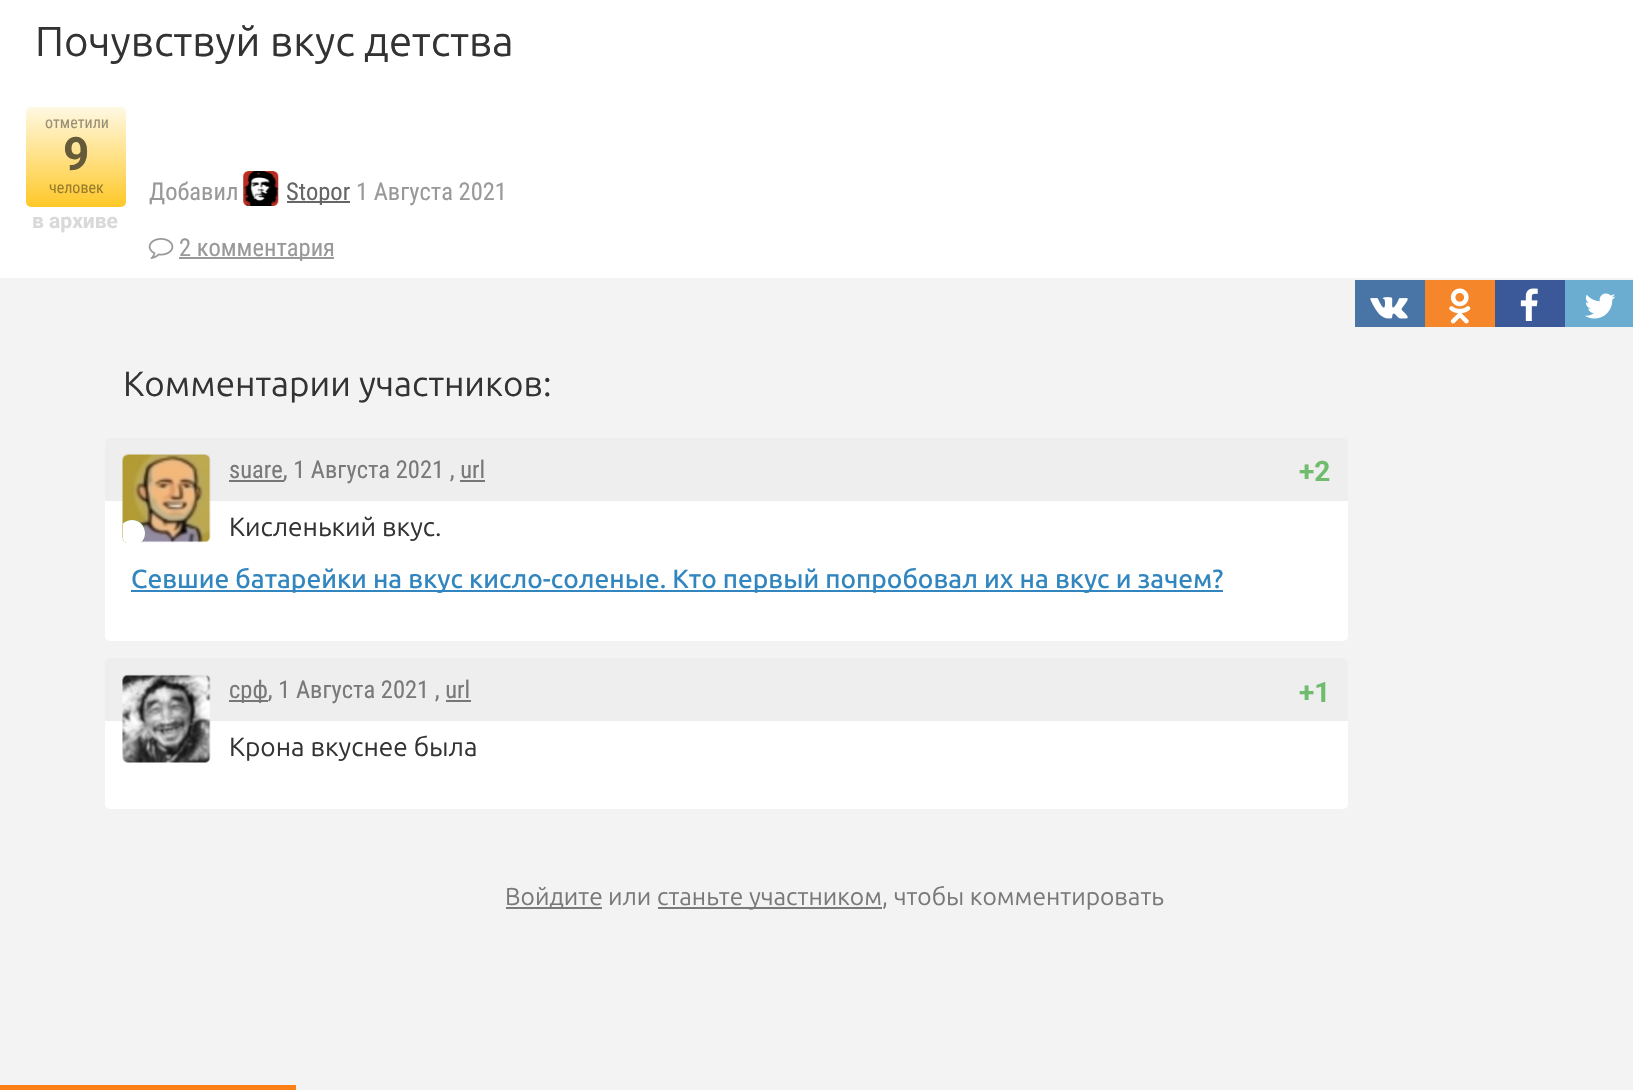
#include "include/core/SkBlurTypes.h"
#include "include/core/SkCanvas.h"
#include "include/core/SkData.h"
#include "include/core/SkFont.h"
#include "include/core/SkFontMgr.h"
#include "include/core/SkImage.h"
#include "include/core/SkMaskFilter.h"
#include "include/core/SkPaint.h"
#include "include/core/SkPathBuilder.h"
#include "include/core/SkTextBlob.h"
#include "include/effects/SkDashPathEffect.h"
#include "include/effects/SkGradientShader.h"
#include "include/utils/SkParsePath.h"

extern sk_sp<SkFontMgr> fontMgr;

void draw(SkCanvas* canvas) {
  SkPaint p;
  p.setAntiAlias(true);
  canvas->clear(SkColorSetRGB(243, 243, 243));
  p.setColor(SK_ColorWHITE);
  canvas->drawRect(SkRect::MakeLTRB(0, 0, 1633, 278), p);
  {
    const SkColor colors[] = {SkColorSetRGB(255, 249, 227), SkColorSetRGB(255, 200, 40)};
    const float stops[] = {0, 1};
    const SkPoint ends[] = {{76, 107}, {76, 207}};
    p.setShader(SkGradientShader::MakeLinear(ends, colors, stops, 2, SkTileMode::kClamp));
    p.setAlpha(255);
  }
  canvas->drawRoundRect(SkRect::MakeLTRB(26, 107, 126, 207), 5, 5, p);
  canvas->drawImageRect(SkImages::DeferredFromEncodedData(SkData::MakeFromFileName("images/1.png")), SkRect::MakeLTRB(243, 171, 279, 206), SkSamplingOptions());
  p.setShader(nullptr);
  p.setColor(SkColorSetRGB(102, 102, 102));
  canvas->drawRect(SkRect::MakeLTRB(287, 201, 350, 203), p);
  canvas->drawImageRect(SkImages::DeferredFromEncodedData(SkData::MakeFromFileName("images/2.png")), SkRect::MakeLTRB(148, 238, 174, 259), SkSamplingOptions());
  p.setColor(SkColorSetRGB(153, 153, 153));
  canvas->drawRect(SkRect::MakeLTRB(179, 257, 334, 259), p);
  p.setColor(SkColorSetRGB(72, 116, 166));
  canvas->drawRect(SkRect::MakeLTRB(1355, 280, 1425, 327), p);
  canvas->drawImageRect(SkImages::DeferredFromEncodedData(SkData::MakeFromFileName("images/3.png")), SkRect::MakeLTRB(1370, 297, 1408, 319), SkSamplingOptions());
  p.setColor(SkColorSetRGB(245, 134, 41));
  canvas->drawRect(SkRect::MakeLTRB(1425, 280, 1495, 327), p);
  canvas->drawImageRect(SkImages::DeferredFromEncodedData(SkData::MakeFromFileName("images/4.png")), SkRect::MakeLTRB(1449, 288, 1471, 324), SkSamplingOptions());
  p.setColor(SkColorSetRGB(59, 89, 152));
  canvas->drawRect(SkRect::MakeLTRB(1495, 280, 1565, 327), p);
  canvas->drawImageRect(SkImages::DeferredFromEncodedData(SkData::MakeFromFileName("images/5.png")), SkRect::MakeLTRB(1520, 288, 1538, 321), SkSamplingOptions());
  p.setColor(SkColorSetRGB(106, 173, 209));
  canvas->drawRect(SkRect::MakeLTRB(1565, 280, 1633, 327), p);
  canvas->drawImageRect(SkImages::DeferredFromEncodedData(SkData::MakeFromFileName("images/6.png")), SkRect::MakeLTRB(1584, 293, 1616, 319), SkSamplingOptions());
  p.setColor(SK_ColorWHITE);
  canvas->drawRoundRect(SkRect::MakeLTRB(105, 438, 1348, 641), 5, 5, p);
  p.setColor(SkColorSetRGB(238, 238, 238));
  canvas->drawPath(SkPathBuilder().moveTo(110, 438).lineTo(1343, 438).cubicTo(1346, 438, 1348, 440, 1348, 443).lineTo(1348, 501).lineTo(105, 501).lineTo(105, 443).cubicTo(105, 440, 107, 438, 110, 438).close().detach(), p);
  canvas->drawImageRect(SkImages::DeferredFromEncodedData(SkData::MakeFromFileName("images/7.png")), SkRect::MakeLTRB(122, 454, 211, 543), SkSamplingOptions());
  canvas->save();
  canvas->clipPath(SkPathBuilder().moveTo(128, 455).lineTo(207, 455).cubicTo(210, 455, 212, 457, 212, 460).lineTo(212, 538).cubicTo(212, 541, 210, 543, 207, 543).lineTo(128, 543).cubicTo(125, 543, 123, 541, 123, 538).lineTo(123, 460).cubicTo(123, 457, 125, 455, 128, 455).close().detach(), true);
  p.setColor(SkColorSetRGB(82, 169, 78));
  canvas->drawCircle(132, 533, 13, p);
  canvas->restore();
  p.setColor(SK_ColorWHITE);
  canvas->drawPath(SkPathBuilder().moveTo(132, 520).cubicTo(128.5f, 520, 125.5f, 521.5f, 123, 523.5f).lineTo(123, 538).cubicTo(123, 541, 125, 543, 128, 543).lineTo(140.5f, 543).cubicTo(149.5f, 535.5f, 144, 520, 132, 520).close().detach(), p);
  p.setColor(SkColorSetRGB(119, 119, 119));
  canvas->drawRect(SkRect::MakeLTRB(229, 480, 284, 482), p);
  p.setColor(SkColorSetRGB(50, 134, 191));
  canvas->drawRect(SkRect::MakeLTRB(131, 590, 1223, 592), p);
  p.setColor(SK_ColorWHITE);
  canvas->drawRoundRect(SkRect::MakeLTRB(105, 658, 1348, 809), 5, 5, p);
  p.setColor(SkColorSetRGB(238, 238, 238));
  canvas->drawPath(SkPathBuilder().moveTo(110, 658).lineTo(1343, 658).cubicTo(1346, 658, 1348, 660, 1348, 663).lineTo(1348, 721).lineTo(105, 721).lineTo(105, 663).cubicTo(105, 660, 107, 658, 110, 658).close().detach(), p);
  canvas->drawImageRect(SkImages::DeferredFromEncodedData(SkData::MakeFromFileName("images/8.png")), SkRect::MakeLTRB(122, 674, 211, 763), SkSamplingOptions());
  p.setColor(SkColorSetRGB(119, 119, 119));
  canvas->drawRect(SkRect::MakeLTRB(229, 700, 268, 702), p);
  p.setColor(SkColorSetRGB(122, 122, 122));
  canvas->drawRect(SkRect::MakeLTRB(506, 907, 602, 909), p);
  canvas->drawRect(SkRect::MakeLTRB(658, 907, 882, 909), p);
  p.setColor(SkColorSetRGB(252, 128, 22));
  canvas->drawRect(SkRect::MakeLTRB(0, 1085, 296, 1090), p);
  SkFont font1(fontMgr->matchFamilyStyle("Ubuntu", SkFontStyle::Normal()), 42);
  font1.setSubpixel(true);
  p.setColor(SkColorSetRGB(51, 51, 51));
  canvas->drawString("Почувствуй вкус детства", 35, 56, font1, p);
  SkFont font2(fontMgr->matchFamilyStyle("Roboto Condensed", SkFontStyle::Normal()), 16);
  font2.setSubpixel(true);
  p.setColor(SkColorSetRGB(153, 144, 118));
  canvas->drawString("отметили", 45, 128, font2, p);
  SkFont font3(fontMgr->matchFamilyStyle("Roboto", SkFontStyle::Bold()), 46);
  font3.setSubpixel(true);
  p.setColor(SkColorSetRGB(102, 91, 57));
  canvas->drawString("9", 63, 170, font3, p);
  p.setColor(SkColorSetRGB(153, 125, 45));
  canvas->drawString("человек", 49, 193, font2, p);
  SkFont font4(fontMgr->matchFamilyStyle("Roboto", SkFontStyle::Bold()), 21);
  font4.setSubpixel(true);
  p.setColor(SkColorSetRGB(217, 217, 217));
  canvas->drawString("в архиве", 32, 228, font4, p);
  SkFont font5(fontMgr->matchFamilyStyle("Roboto Condensed", SkFontStyle::Normal()), 24.5f);
  font5.setSubpixel(true);
  p.setColor(SkColorSetRGB(153, 153, 153));
  canvas->drawString("Добавил", 149, 200, font5, p);
  p.setColor(SkColorSetRGB(102, 102, 102));
  canvas->drawString("Stopor", 286, 200, font5, p);
  p.setColor(SkColorSetRGB(153, 153, 153));
  canvas->drawString("1 Августа 2021", 356, 200, font5, p);
  canvas->drawString("2 комментария", 179, 256, font5, p);
  SkFont font6(fontMgr->matchFamilyStyle("Ubuntu", SkFontStyle::Normal()), 35);
  font6.setSubpixel(true);
  p.setColor(SkColorSetRGB(51, 51, 51));
  canvas->drawString("Комментарии участников:", 123, 396, font6, p);
  p.setColor(SkColorSetRGB(121, 121, 121));
  canvas->drawString("suare, 1 Августа 2021 , url", 229, 478, font5, p);
  SkFont font7(fontMgr->matchFamilyStyle("Roboto", SkFontStyle::Bold()), 28);
  font7.setSubpixel(true);
  p.setColor(SkColorSetRGB(112, 188, 110));
  canvas->drawString("+2", 1299, 481, font7, p);
  p.setColor(SkColorSetRGB(119, 119, 119));
  canvas->drawRect(SkRect::MakeLTRB(460, 480, 485, 482), p);
  SkFont font8(fontMgr->matchFamilyStyle("Ubuntu", SkFontStyle::Normal()), 26.25f);
  font8.setSubpixel(true);
  p.setColor(SkColorSetRGB(51, 51, 51));
  canvas->drawString("Кисленький вкус.", 229, 536, font8, p);
  SkFont font9(fontMgr->matchFamilyStyle("Ubuntu", SkFontStyle(500, SkFontStyle::kNormal_Width, SkFontStyle::kUpright_Slant)), 26.25f);
  font9.setSubpixel(true);
  p.setColor(SkColorSetRGB(50, 134, 191));
  canvas->drawString("Севшие батарейки на вкус кисло-соленые. Кто первый попробовал их на вкус и зачем?", 131, 588, font9, p);
  p.setColor(SkColorSetRGB(121, 121, 121));
  canvas->drawString("срф, 1 Августа 2021 , url", 229, 698, font5, p);
  p.setColor(SkColorSetRGB(112, 188, 110));
  canvas->drawString("+1", 1299, 702, font7, p);
  p.setColor(SkColorSetRGB(119, 119, 119));
  canvas->drawRect(SkRect::MakeLTRB(446, 700, 471, 702), p);
  p.setColor(SkColorSetRGB(51, 51, 51));
  canvas->drawString("Крона вкуснее была", 229, 756, font8, p);
  SkFont font10(fontMgr->matchFamilyStyle("Ubuntu", SkFontStyle::Normal()), 24.5f);
  font10.setSubpixel(true);
  p.setColor(SkColorSetRGB(121, 121, 121));
  canvas->drawString("Войдите", 505, 905, font10, p);
  canvas->drawString("или", 608, 905, font10, p);
  canvas->drawString("станьте участником", 657, 905, font10, p);
  canvas->drawString(", чтобы комментировать", 882, 905, font10, p);
}
